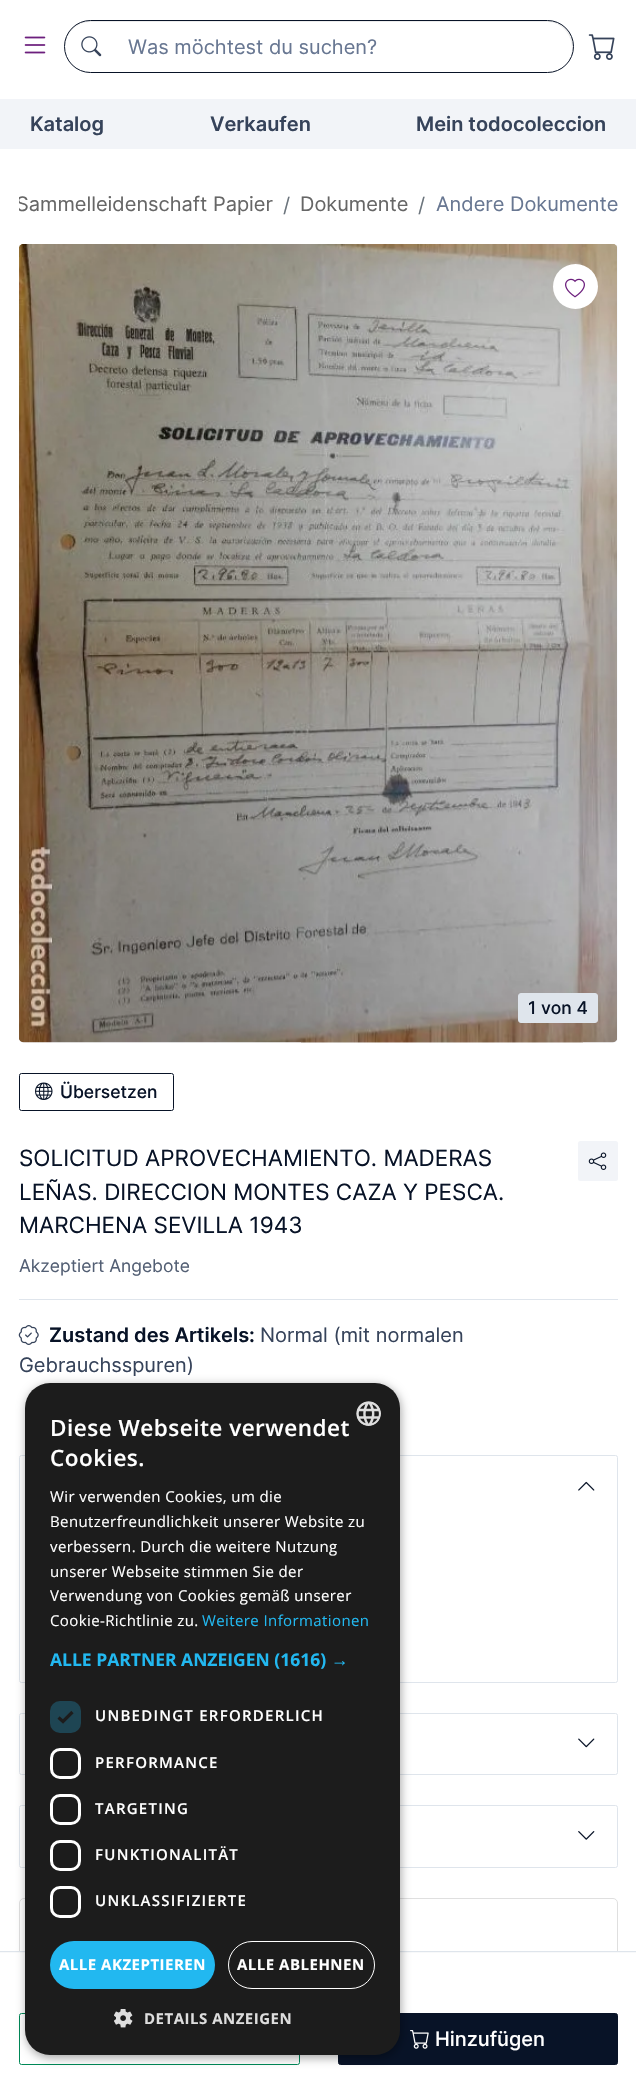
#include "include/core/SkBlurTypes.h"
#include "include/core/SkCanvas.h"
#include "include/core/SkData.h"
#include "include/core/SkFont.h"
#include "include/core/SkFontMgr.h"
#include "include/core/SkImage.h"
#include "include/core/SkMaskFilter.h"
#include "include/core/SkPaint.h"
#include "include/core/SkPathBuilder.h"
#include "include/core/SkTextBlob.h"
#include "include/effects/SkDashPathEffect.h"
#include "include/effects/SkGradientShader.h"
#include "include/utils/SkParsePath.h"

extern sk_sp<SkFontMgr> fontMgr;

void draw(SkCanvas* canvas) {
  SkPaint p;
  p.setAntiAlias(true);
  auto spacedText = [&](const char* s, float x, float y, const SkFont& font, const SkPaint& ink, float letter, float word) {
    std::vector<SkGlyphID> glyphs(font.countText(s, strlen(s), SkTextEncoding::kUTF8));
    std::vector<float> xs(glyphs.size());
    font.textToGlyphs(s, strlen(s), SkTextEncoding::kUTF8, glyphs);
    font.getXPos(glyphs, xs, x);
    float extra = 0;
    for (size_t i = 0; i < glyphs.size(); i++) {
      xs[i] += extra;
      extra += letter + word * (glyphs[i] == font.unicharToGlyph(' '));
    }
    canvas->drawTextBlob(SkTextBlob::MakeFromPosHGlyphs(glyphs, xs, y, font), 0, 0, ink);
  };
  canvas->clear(SK_ColorWHITE);
  canvas->drawImageRect(SkImages::DeferredFromEncodedData(SkData::MakeFromFileName("images/1.png")), SkRect::MakeLTRB(24, 36, 46, 54), SkSamplingOptions());
  p.setColor(SkColorSetRGB(236, 236, 236));
  canvas->drawPath(SkPathBuilder().moveTo(90, 22).lineTo(548, 22).cubicTo(561, 22, 572, 34, 572, 48).cubicTo(572, 53, 571, 57, 568, 61).cubicTo(571, 56, 573, 51, 573, 46).cubicTo(573, 32, 562, 21, 548, 21).lineTo(90, 21).cubicTo(76, 21, 65, 32, 65, 46).lineTo(65, 47).cubicTo(66, 33, 76, 22, 90, 22).close().detach(), p);
  p.setStyle(SkPaint::kStroke_Style);
  p.setStrokeWidth(1);
  p.setColor(SkColorSetRGB(8, 19, 39));
  canvas->drawRoundRect(SkRect::MakeLTRB(64.5f, 20.5f, 573.5f, 72.5f), 26, 26, p);
  canvas->drawImageRect(SkImages::DeferredFromEncodedData(SkData::MakeFromFileName("images/2.png")), SkRect::MakeLTRB(81, 36, 102, 57), SkSamplingOptions());
  canvas->drawImageRect(SkImages::DeferredFromEncodedData(SkData::MakeFromFileName("images/3.png")), SkRect::MakeLTRB(588, 34, 615, 60), SkSamplingOptions());
  p.setStyle(SkPaint::kFill_Style);
  p.setColor(SkColorSetRGB(242, 244, 248));
  canvas->drawRect(SkRect::MakeLTRB(0, 99, 636, 149), p);
  p.setColor(SkColorSetRGB(248, 249, 252));
  canvas->drawRoundRect(SkRect::MakeLTRB(19, 244, 618, 1043), 5, 5, p);
  canvas->drawImageRect(SkImages::DeferredFromEncodedData(SkData::MakeFromFileName("images/5.png")), SkRect::MakeLTRB(19, 244, 617, 1043), SkSamplingOptions());
  p.setColor(SK_ColorWHITE);
  canvas->drawCircle(575.5f, 286.5f, 22.5f, p);
  canvas->drawImageRect(SkImages::DeferredFromEncodedData(SkData::MakeFromFileName("images/4.png")), SkRect::MakeLTRB(565, 278, 585, 298), SkSamplingOptions());
  p.setColor(SkColorSetRGB(223, 229, 236));
  canvas->drawRoundRect(SkRect::MakeLTRB(518.5f, 993.5f, 597.5f, 1022.5f), 2.5f, 2.5f, p);
  p.setStyle(SkPaint::kStroke_Style);
  canvas->drawRoundRect(SkRect::MakeLTRB(518.5f, 993.5f, 597.5f, 1022.5f), 2.5f, 2.5f, p);
  p.setColor(SkColorSetRGB(8, 19, 39));
  canvas->drawRoundRect(SkRect::MakeLTRB(19.5f, 1073.5f, 173.5f, 1110.5f), 2, 2, p);
  canvas->drawImageRect(SkImages::DeferredFromEncodedData(SkData::MakeFromFileName("images/6.png")), SkRect::MakeLTRB(35, 1082, 53, 1100), SkSamplingOptions());
  p.setStyle(SkPaint::kFill_Style);
  p.setColor(SkColorSetRGB(242, 244, 248));
  canvas->drawRoundRect(SkRect::MakeLTRB(578, 1141, 618, 1181), 2.5f, 2.5f, p);
  canvas->drawImageRect(SkImages::DeferredFromEncodedData(SkData::MakeFromFileName("images/7.png")), SkRect::MakeLTRB(588, 1152, 607, 1170), SkSamplingOptions());
  p.setColor(SkColorSetRGB(223, 229, 236));
  canvas->drawRect(SkRect::MakeLTRB(19, 1299, 618, 1300), p);
  canvas->drawImageRect(SkImages::DeferredFromEncodedData(SkData::MakeFromFileName("images/8.png")), SkRect::MakeLTRB(18, 1325, 39, 1345), SkSamplingOptions());
  p.setStyle(SkPaint::kStroke_Style);
  canvas->drawRoundRect(SkRect::MakeLTRB(19.5f, 1455.5f, 617.5f, 1682.5f), 2, 2, p);
  canvas->drawImageRect(SkImages::DeferredFromEncodedData(SkData::MakeFromFileName("images/9.png")), SkRect::MakeLTRB(578, 1481, 595, 1491), SkSamplingOptions());
  canvas->drawRoundRect(SkRect::MakeLTRB(19.5f, 1713.5f, 617.5f, 1774.5f), 2, 2, p);
  canvas->drawImageRect(SkImages::DeferredFromEncodedData(SkData::MakeFromFileName("images/10.png")), SkRect::MakeLTRB(578, 1738, 595, 1748), SkSamplingOptions());
  canvas->drawRoundRect(SkRect::MakeLTRB(19.5f, 1805.5f, 617.5f, 1867.5f), 2, 2, p);
  canvas->drawImageRect(SkImages::DeferredFromEncodedData(SkData::MakeFromFileName("images/11.png")), SkRect::MakeLTRB(578, 1831, 595, 1840), SkSamplingOptions());
  p.setColor(SkColorSetRGB(223, 223, 223));
  canvas->drawRoundRect(SkRect::MakeLTRB(19.5f, 1898.5f, 617.5f, 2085.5f), 4.5f, 4.5f, p);
  p.setStyle(SkPaint::kFill_Style);
  p.setColor(SkColorSetRGB(248, 249, 250));
  canvas->drawRect(SkRect::MakeLTRB(0, 1952, 636, 1953), p);
  p.setColor(SkColorSetRGB(223, 229, 236));
  canvas->drawRect(SkRect::MakeLTRB(0, 1951, 636, 1952), p);
  p.setColor(SK_ColorWHITE);
  canvas->drawRect(SkRect::MakeLTRB(19, 1953, 618, 2080), p);
  p.setStyle(SkPaint::kStroke_Style);
  p.setColor(SkColorSetRGB(0, 136, 87));
  canvas->drawRoundRect(SkRect::MakeLTRB(19.5f, 2013.5f, 299.5f, 2064.5f), 2, 2, p);
  p.setStyle(SkPaint::kFill_Style);
  p.setColor(SkColorSetRGB(8, 19, 39));
  canvas->drawRoundRect(SkRect::MakeLTRB(338.5f, 2013.5f, 617.5f, 2064.5f), 2, 2, p);
  p.setStyle(SkPaint::kStroke_Style);
  canvas->drawRoundRect(SkRect::MakeLTRB(338.5f, 2013.5f, 617.5f, 2064.5f), 2, 2, p);
  canvas->drawImageRect(SkImages::DeferredFromEncodedData(SkData::MakeFromFileName("images/12.png")), SkRect::MakeLTRB(410, 2030, 429, 2049), SkSamplingOptions());
  p.setStyle(SkPaint::kFill_Style);
  p.setColor(SkColorSetARGB(89, 0, 0, 0));
  p.setMaskFilter(SkMaskFilter::MakeBlur(kNormal_SkBlurStyle, 5));
  canvas->drawRoundRect(SkRect::MakeLTRB(26, 1385, 401, 2058), 25, 25, p);
  p.setMaskFilter(nullptr);
  p.setColor(SkColorSetRGB(28, 28, 28));
  canvas->drawRoundRect(SkRect::MakeLTRB(25, 1383, 400, 2055), 25, 25, p);
  canvas->drawImageRect(SkImages::DeferredFromEncodedData(SkData::MakeFromFileName("images/13.png")), SkRect::MakeLTRB(356, 1401, 381, 1426), SkSamplingOptions());
  p.setColor(SkColorSetRGB(30, 69, 83));
  canvas->drawRoundRect(SkRect::MakeLTRB(50, 1701, 81, 1733), 10, 10, p);
  p.setStyle(SkPaint::kStroke_Style);
  p.setStrokeWidth(3.3f);
  p.setColor(SkColorSetRGB(28, 28, 28));
  canvas->drawPath(SkPathBuilder().moveTo(58.5f, 1717.5f).lineTo(63, 1721.5f).lineTo(72.5f, 1712).detach(), p);
  p.setStrokeWidth(3);
  p.setColor(SK_ColorWHITE);
  canvas->drawRoundRect(SkRect::MakeLTRB(51.5f, 1749.5f, 79.5f, 1777.5f), 8.5f, 8.5f, p);
  canvas->drawRoundRect(SkRect::MakeLTRB(51.5f, 1795.5f, 79.5f, 1823.5f), 8.5f, 8.5f, p);
  canvas->drawRoundRect(SkRect::MakeLTRB(51.5f, 1841.5f, 79.5f, 1869.5f), 8.5f, 8.5f, p);
  canvas->drawRoundRect(SkRect::MakeLTRB(51.5f, 1887.5f, 79.5f, 1916.5f), 8.5f, 8.5f, p);
  p.setStyle(SkPaint::kFill_Style);
  p.setColor(SkColorSetRGB(34, 184, 240));
  canvas->drawRoundRect(SkRect::MakeLTRB(50, 1941, 215, 1989), 24, 24, p);
  p.setStyle(SkPaint::kStroke_Style);
  p.setStrokeWidth(1);
  p.setColor(SK_ColorWHITE);
  canvas->drawRoundRect(SkRect::MakeLTRB(228.5f, 1941.5f, 374.5f, 1988.5f), 23.5f, 23.5f, p);
  canvas->drawImageRect(SkImages::DeferredFromEncodedData(SkData::MakeFromFileName("images/14.png")), SkRect::MakeLTRB(114, 2009, 133, 2028), SkSamplingOptions());
  SkFont font1(fontMgr->matchFamilyStyle("Inter", SkFontStyle::Normal()), 20);
  font1.setSubpixel(true);
  p.setStyle(SkPaint::kFill_Style);
  p.setColor(SkColorSetRGB(104, 119, 146));
  canvas->drawString("Was möchtest du suchen?", 128, 54, font1, p);
  SkFont font2(fontMgr->matchFamilyStyle("Inter", SkFontStyle(600, SkFontStyle::kNormal_Width, SkFontStyle::kUpright_Slant)), 20);
  font2.setSubpixel(true);
  p.setColor(SkColorSetRGB(54, 67, 90));
  canvas->drawString("Katalog", 30, 131, font2, p);
  canvas->drawString("Verkaufen", 210, 131, font2, p);
  canvas->drawString("Mein todocoleccion", 416, 131, font2, p);
  canvas->save();
  canvas->clipRect(SkRect::MakeLTRB(19, 189, 618, 220));
  p.setColor(SkColorSetRGB(102, 102, 102));
  canvas->drawString("Sammelleidenschaft Papier", 16, 211, font1, p);
  canvas->restore();
  p.setColor(SkColorSetRGB(108, 117, 125));
  canvas->drawString("/", 283, 212, font1, p);
  p.setColor(SkColorSetRGB(102, 102, 102));
  canvas->drawString("Dokumente", 300, 211, font1, p);
  p.setColor(SkColorSetRGB(108, 117, 125));
  canvas->drawString("/", 418, 212, font1, p);
  p.setColor(SkColorSetRGB(104, 119, 146));
  canvas->drawString("Andere Dokumente", 436, 211, font1, p);
  SkFont font3(fontMgr->matchFamilyStyle("Inter", SkFontStyle(500, SkFontStyle::kNormal_Width, SkFontStyle::kUpright_Slant)), 17.5f);
  font3.setSubpixel(true);
  p.setColor(SkColorSetRGB(8, 19, 39));
  canvas->drawString("1 von 4", 528, 1014, font3, p);
  canvas->drawString("Übersetzen", 60, 1098, font3, p);
  SkFont font4(fontMgr->matchFamilyStyle("Inter", SkFontStyle::Normal()), 22.5f);
  font4.setSubpixel(true);
  canvas->drawString("SOLICITUD APROVECHAMIENTO. MADERAS", 19, 1166, font4, p);
  canvas->drawString("LEÑAS. DIRECCION MONTES CAZA Y PESCA.", 19, 1200, font4, p);
  canvas->drawString("MARCHENA SEVILLA 1943", 19, 1233, font4, p);
  SkFont font5(fontMgr->matchFamilyStyle("Inter", SkFontStyle::Normal()), 17.5f);
  font5.setSubpixel(true);
  p.setColor(SkColorSetRGB(83, 95, 116));
  canvas->drawString("Akzeptiert Angebote", 19, 1272, font5, p);
  p.setColor(SkColorSetRGB(8, 19, 39));
  canvas->drawString("Zustand des Artikels:", 49, 1342, font2, p);
  p.setColor(SkColorSetRGB(54, 67, 90));
  canvas->drawString("Normal (mit normalen", 260, 1342, font1, p);
  canvas->drawString("Gebrauchsspuren)", 19, 1372, font1, p);
  SkFont font6(fontMgr->matchFamilyStyle("Inter", SkFontStyle(500, SkFontStyle::kNormal_Width, SkFontStyle::kUpright_Slant)), 20);
  font6.setSubpixel(true);
  p.setColor(SK_ColorWHITE);
  canvas->drawString("Hinzufügen", 435, 2046, font6, p);
  SkFont font7(fontMgr->matchFamilyStyle("Open Sans", SkFontStyle(600, SkFontStyle::kNormal_Width, SkFontStyle::kUpright_Slant)), 22.5f);
  font7.setSubpixel(true);
  spacedText("Diese Webseite verwendet", 50, 1436, font7, p, 0.5f, 0);
  spacedText("Cookies.", 50, 1466, font7, p, 0.5f, 0);
  SkFont font8(fontMgr->matchFamilyStyle("Open Sans", SkFontStyle::Normal()), 15);
  font8.setSubpixel(true);
  spacedText("Wir verwenden Cookies, um die", 50, 1502, font8, p, 0.4f, 0);
  spacedText("Benutzerfreundlichkeit unserer Website zu", 50, 1527, font8, p, 0.4f, 0);
  spacedText("verbessern. Durch die weitere Nutzung", 50, 1552, font8, p, 0.4f, 0);
  spacedText("unserer Webseite stimmen Sie der", 50, 1577, font8, p, 0.4f, 0);
  spacedText("Verwendung von Cookies gemäß unserer", 50, 1601, font8, p, 0.4f, 0);
  spacedText("Cookie-Richtlinie zu.", 50, 1626, font8, p, 0.4f, 0);
  p.setColor(SkColorSetRGB(34, 184, 240));
  spacedText("Weitere Informationen", 202, 1626, font8, p, 0.4f, 0);
  SkFont font9(fontMgr->matchFamilyStyle("Open Sans", SkFontStyle::Bold()), 17.5f);
  font9.setSubpixel(true);
  canvas->drawString("ALLE PARTNER ANZEIGEN (1616)", 50, 1666, font9, p);
  SkFont font10(fontMgr->matchFamilyStyle("Liberation Sans", SkFontStyle::Bold()), 17.5f);
  font10.setSubpixel(true);
  canvas->drawString("→", 331, 1666, font10, p);
  SkFont font11(fontMgr->matchFamilyStyle("Open Sans", SkFontStyle(600, SkFontStyle::kNormal_Width, SkFontStyle::kUpright_Slant)), 15);
  font11.setSubpixel(true);
  p.setColor(SK_ColorWHITE);
  spacedText("UNBEDINGT ERFORDERLICH", 95, 1721, font11, p, 1.25f, 0);
  spacedText("PERFORMANCE", 95, 1768, font11, p, 1.25f, 0);
  spacedText("TARGETING", 95, 1814, font11, p, 1.25f, 0);
  spacedText("FUNKTIONALITÄT", 95, 1860, font11, p, 1.25f, 0);
  spacedText("UNKLASSIFIZIERTE", 95, 1906, font11, p, 1.25f, 0);
  SkFont font12(fontMgr->matchFamilyStyle("Open Sans", SkFontStyle::Bold()), 15);
  font12.setSubpixel(true);
  spacedText("ALLE AKZEPTIEREN", 59, 1970, font12, p, 0.5f, 0);
  spacedText("ALLE ABLEHNEN", 237, 1970, font12, p, 0.5f, 0);
  p.setColor(SkColorSetRGB(221, 221, 221));
  spacedText("DETAILS ANZEIGEN", 144, 2024, font12, p, 0.5f, 0);
}
